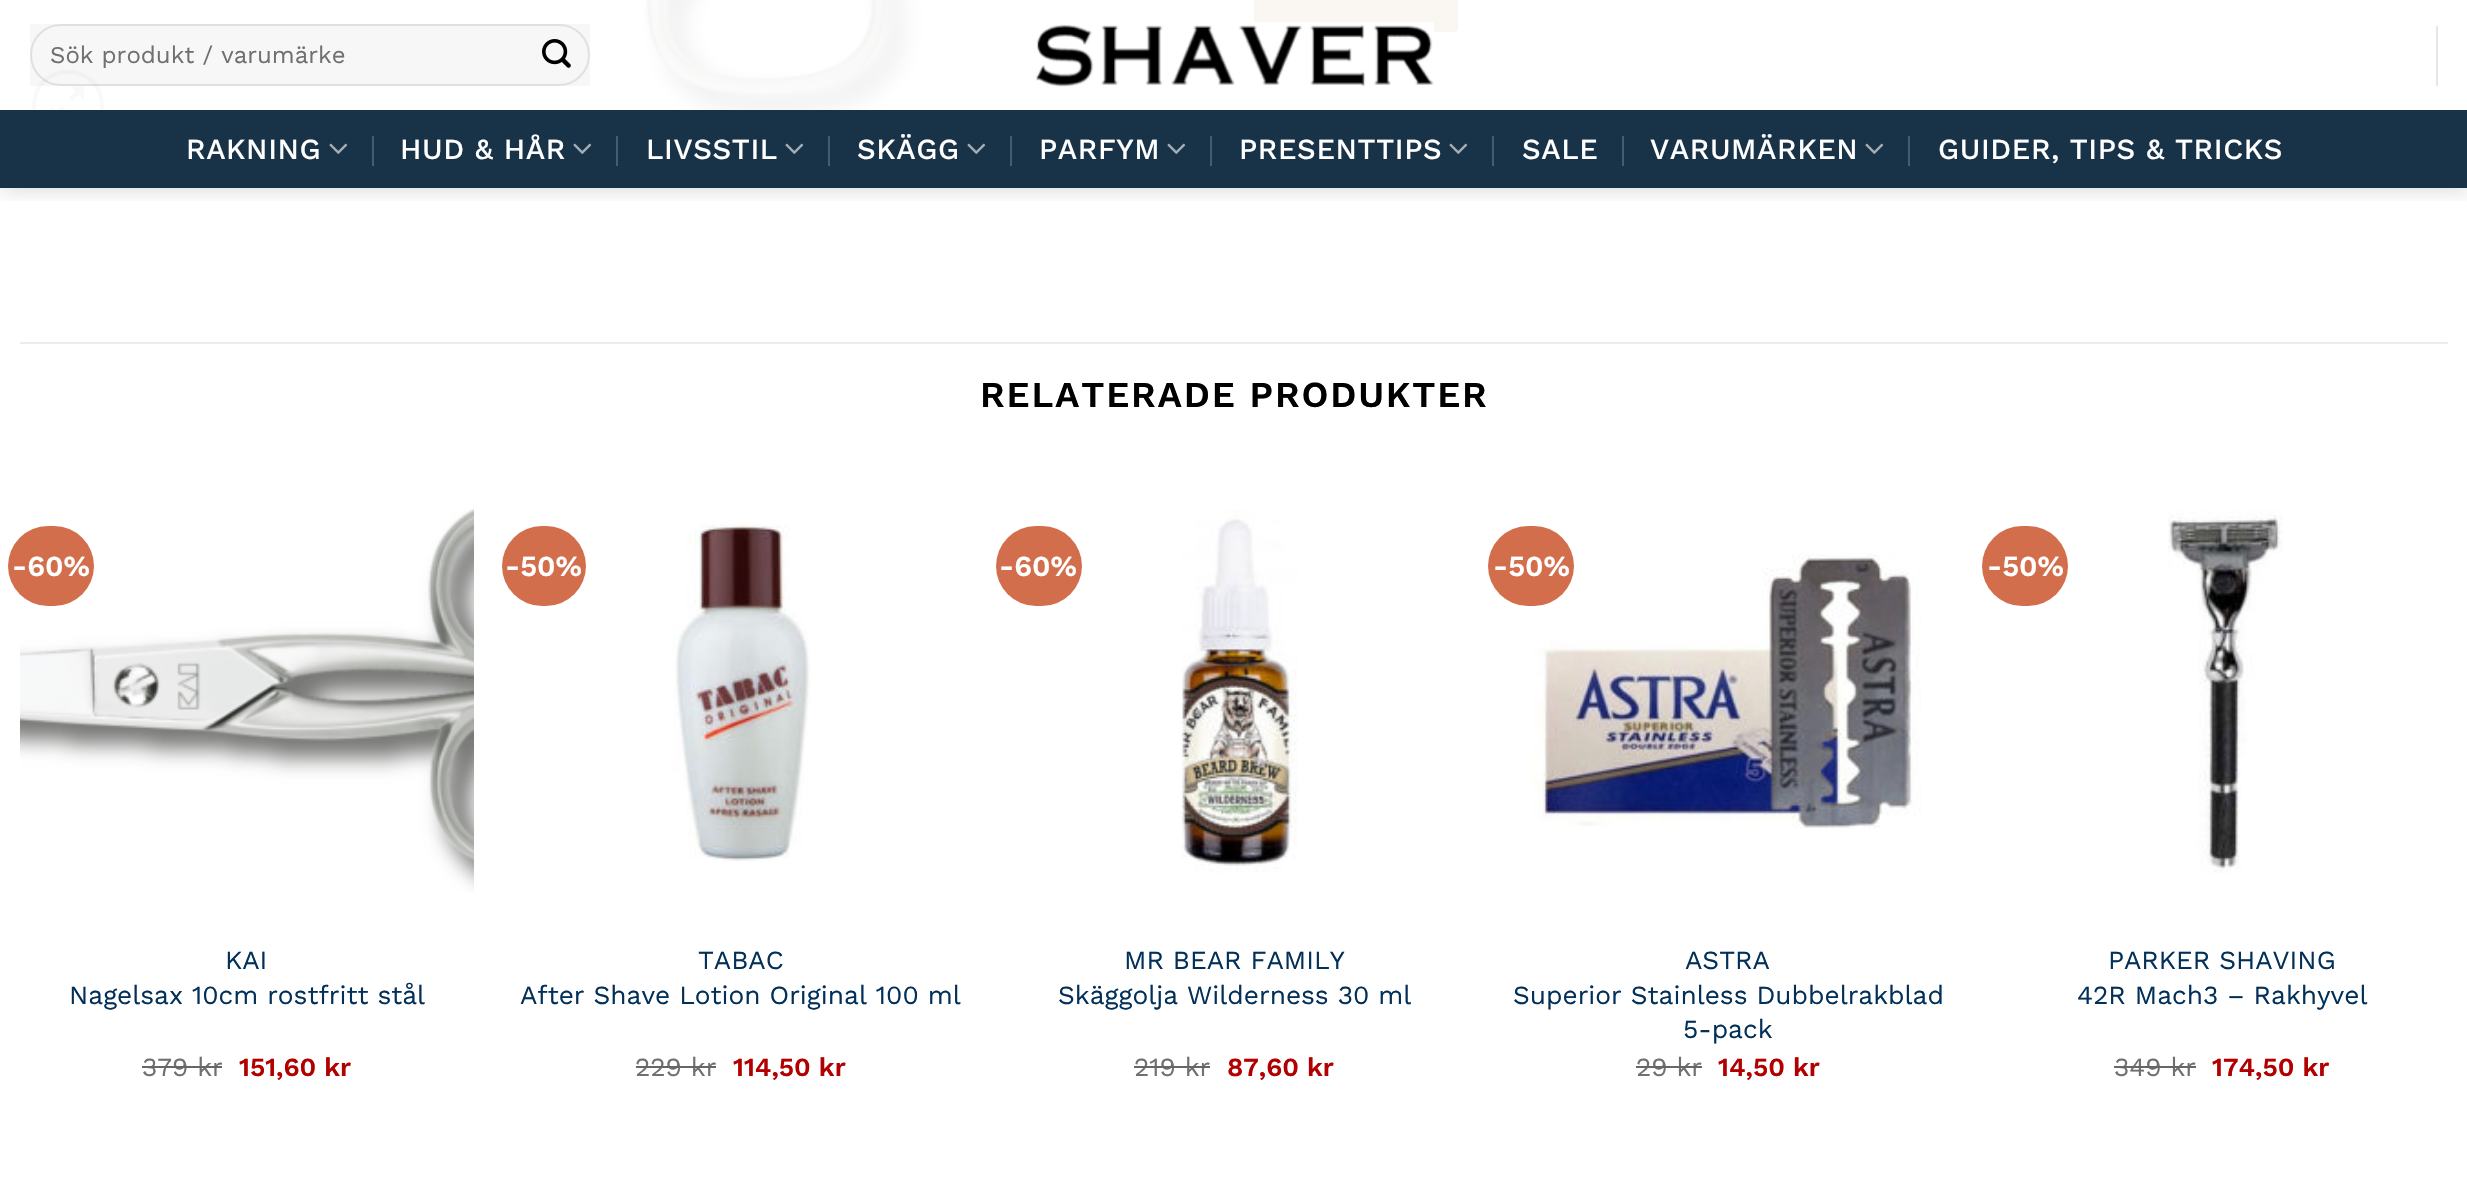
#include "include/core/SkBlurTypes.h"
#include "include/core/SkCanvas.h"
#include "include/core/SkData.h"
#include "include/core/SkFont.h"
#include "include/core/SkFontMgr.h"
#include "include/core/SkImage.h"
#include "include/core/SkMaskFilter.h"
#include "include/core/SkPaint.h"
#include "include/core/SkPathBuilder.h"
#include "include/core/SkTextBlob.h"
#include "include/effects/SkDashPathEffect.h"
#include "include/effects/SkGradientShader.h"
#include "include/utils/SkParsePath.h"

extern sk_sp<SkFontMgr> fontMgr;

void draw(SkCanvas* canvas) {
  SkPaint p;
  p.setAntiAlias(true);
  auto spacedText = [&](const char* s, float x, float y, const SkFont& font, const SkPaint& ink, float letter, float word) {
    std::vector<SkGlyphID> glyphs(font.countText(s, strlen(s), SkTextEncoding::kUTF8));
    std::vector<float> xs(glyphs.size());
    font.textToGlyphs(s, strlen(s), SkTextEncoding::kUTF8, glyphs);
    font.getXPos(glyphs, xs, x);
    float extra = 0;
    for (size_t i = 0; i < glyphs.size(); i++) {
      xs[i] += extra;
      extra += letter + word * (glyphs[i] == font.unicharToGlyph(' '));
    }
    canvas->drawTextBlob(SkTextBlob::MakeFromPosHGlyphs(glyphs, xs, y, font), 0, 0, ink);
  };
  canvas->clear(SK_ColorWHITE);
  p.setStyle(SkPaint::kStroke_Style);
  p.setStrokeWidth(4);
  p.setColor(SkColorSetRGB(249, 249, 249));
  canvas->drawRoundRect(SkRect::MakeLTRB(34, 72, 102, 138), 33, 33, p);
  canvas->drawImageRect(SkImages::DeferredFromEncodedData(SkData::MakeFromFileName("images/4.png")), SkRect::MakeLTRB(50, 86, 84, 110), SkSamplingOptions());
  canvas->drawImageRect(SkImages::DeferredFromEncodedData(SkData::MakeFromFileName("images/5.png")), SkRect::MakeLTRB(642, 0, 924, 110), SkSamplingOptions());
  p.setStyle(SkPaint::kFill_Style);
  p.setColor(SkColorSetRGB(250, 246, 242));
  canvas->drawRoundRect(SkRect::MakeLTRB(1254, -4, 1458, 32), 4, 4, p);
  canvas->save();
  canvas->clipRect(SkRect::MakeLTRB(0, 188, 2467, 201));
  p.setColor(SkColorSetARGB(38, 0, 0, 0));
  p.setMaskFilter(SkMaskFilter::MakeBlur(kNormal_SkBlurStyle, 10));
  canvas->drawRect(SkRect::MakeLTRB(2, 2, 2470, 190), p);
  p.setMaskFilter(nullptr);
  canvas->restore();
  p.setColor(SkColorSetARGB(8, 0, 0, 0));
  canvas->drawRect(SkRect::MakeLTRB(30, 24, 590, 86), p);
  p.setStyle(SkPaint::kStroke_Style);
  p.setStrokeWidth(2);
  p.setColor(SkColorSetARGB(23, 0, 0, 0));
  canvas->drawRoundRect(SkRect::MakeLTRB(31, 25, 589, 85), 30, 30, p);
  canvas->drawImageRect(SkImages::DeferredFromEncodedData(SkData::MakeFromFileName("images/1.png")), SkRect::MakeLTRB(542, 39, 571, 68), SkSamplingOptions());
  canvas->drawImageRect(SkImages::DeferredFromEncodedData(SkData::MakeFromFileName("images/2.png")), SkRect::MakeLTRB(1036, 22, 1434, 87), SkSamplingOptions());
  p.setStyle(SkPaint::kFill_Style);
  p.setColor(SkColorSetRGB(230, 230, 230));
  canvas->drawRect(SkRect::MakeLTRB(2436, 26, 2438, 86), p);
  p.setColor(SkColorSetRGB(24, 50, 72));
  canvas->drawRect(SkRect::MakeLTRB(0, 110, 2467, 188), p);
  canvas->drawImageRect(SkImages::DeferredFromEncodedData(SkData::MakeFromFileName("images/3.png")), SkRect::MakeLTRB(329, 143, 348, 154), SkSamplingOptions());
  p.setColor(SkColorSetRGB(70, 91, 109));
  canvas->drawRect(SkRect::MakeLTRB(372, 136, 374, 166), p);
  canvas->drawImageRect(SkImages::DeferredFromEncodedData(SkData::MakeFromFileName("images/3.png")), SkRect::MakeLTRB(573, 143, 592, 154), SkSamplingOptions());
  canvas->drawRect(SkRect::MakeLTRB(616, 136, 618, 166), p);
  canvas->drawImageRect(SkImages::DeferredFromEncodedData(SkData::MakeFromFileName("images/3.png")), SkRect::MakeLTRB(785, 143, 804, 154), SkSamplingOptions());
  canvas->drawRect(SkRect::MakeLTRB(828, 136, 830, 166), p);
  canvas->drawImageRect(SkImages::DeferredFromEncodedData(SkData::MakeFromFileName("images/3.png")), SkRect::MakeLTRB(967, 143, 986, 154), SkSamplingOptions());
  canvas->drawRect(SkRect::MakeLTRB(1010, 136, 1012, 166), p);
  canvas->drawImageRect(SkImages::DeferredFromEncodedData(SkData::MakeFromFileName("images/3.png")), SkRect::MakeLTRB(1167, 143, 1186, 154), SkSamplingOptions());
  canvas->drawRect(SkRect::MakeLTRB(1210, 136, 1212, 166), p);
  canvas->drawImageRect(SkImages::DeferredFromEncodedData(SkData::MakeFromFileName("images/3.png")), SkRect::MakeLTRB(1449, 143, 1468, 154), SkSamplingOptions());
  canvas->drawRect(SkRect::MakeLTRB(1492, 136, 1494, 166), p);
  canvas->drawRect(SkRect::MakeLTRB(1622, 136, 1624, 166), p);
  canvas->drawImageRect(SkImages::DeferredFromEncodedData(SkData::MakeFromFileName("images/3.png")), SkRect::MakeLTRB(1865, 143, 1884, 154), SkSamplingOptions());
  canvas->drawRect(SkRect::MakeLTRB(1908, 136, 1910, 166), p);
  p.setColor(SkColorSetRGB(236, 236, 236));
  canvas->drawRect(SkRect::MakeLTRB(20, 342, 2448, 344), p);
  canvas->drawImageRect(SkImages::DeferredFromEncodedData(SkData::MakeFromFileName("images/6.png")), SkRect::MakeLTRB(20, 508, 474, 892), SkSamplingOptions());
  p.setColor(SkColorSetRGB(210, 110, 75));
  canvas->drawRoundRect(SkRect::MakeLTRB(8, 526, 94, 606), 40, 40, p);
  canvas->drawRoundRect(SkRect::MakeLTRB(502, 526, 586, 606), 40, 40, p);
  canvas->drawImageRect(SkImages::DeferredFromEncodedData(SkData::MakeFromFileName("images/7.png")), SkRect::MakeLTRB(673, 524, 810, 862), SkSamplingOptions());
  canvas->drawRoundRect(SkRect::MakeLTRB(996, 526, 1082, 606), 40, 40, p);
  canvas->drawImageRect(SkImages::DeferredFromEncodedData(SkData::MakeFromFileName("images/8.png")), SkRect::MakeLTRB(1181, 510, 1298, 873), SkSamplingOptions());
  canvas->drawImageRect(SkImages::DeferredFromEncodedData(SkData::MakeFromFileName("images/9.png")), SkRect::MakeLTRB(1530, 553, 1921, 829), SkSamplingOptions());
  canvas->drawRoundRect(SkRect::MakeLTRB(1488, 526, 1574, 606), 40, 40, p);
  canvas->drawRoundRect(SkRect::MakeLTRB(1982, 526, 2068, 606), 40, 40, p);
  canvas->drawImageRect(SkImages::DeferredFromEncodedData(SkData::MakeFromFileName("images/10.png")), SkRect::MakeLTRB(2168, 510, 2283, 873), SkSamplingOptions());
  SkFont font1(fontMgr->matchFamilyStyle("Work Sans", SkFontStyle::Normal()), 24);
  font1.setSubpixel(true);
  p.setColor(SkColorSetRGB(112, 112, 112));
  canvas->drawString("Sök produkt / varumärke", 50, 63, font1, p);
  SkFont font2(fontMgr->matchFamilyStyle("Work Sans", SkFontStyle(500, SkFontStyle::kNormal_Width, SkFontStyle::kUpright_Slant)), 29.1f);
  font2.setSubpixel(true);
  p.setColor(SK_ColorWHITE);
  spacedText("RAKNING", 186, 159, font2, p, 0.6f, 0);
  spacedText("HUD & HÅR", 400, 159, font2, p, 0.6f, 0);
  spacedText("LIVSSTIL", 646, 159, font2, p, 0.6f, 0);
  spacedText("SKÄGG", 857, 159, font2, p, 0.6f, 0);
  spacedText("PARFYM", 1039, 159, font2, p, 0.6f, 0);
  spacedText("PRESENTTIPS", 1239, 159, font2, p, 0.6f, 0);
  spacedText("SALE", 1522, 159, font2, p, 0.6f, 0);
  spacedText("VARUMÄRKEN", 1650, 159, font2, p, 0.6f, 0);
  spacedText("GUIDER, TIPS & TRICKS", 1938, 159, font2, p, 0.6f, 0);
  SkFont font3(fontMgr->matchFamilyStyle("Work Sans", SkFontStyle(600, SkFontStyle::kNormal_Width, SkFontStyle::kUpright_Slant)), 36.4f);
  font3.setSubpixel(true);
  p.setColor(SK_ColorBLACK);
  spacedText("RELATERADE PRODUKTER", 980, 407, font3, p, 1.8f, 0);
  SkFont font4(fontMgr->matchFamilyStyle("Work Sans", SkFontStyle(600, SkFontStyle::kNormal_Width, SkFontStyle::kUpright_Slant)), 29.1f);
  font4.setSubpixel(true);
  p.setColor(SK_ColorWHITE);
  canvas->drawString("-60%", 12, 576, font4, p);
  SkFont font5(fontMgr->matchFamilyStyle("Work Sans", SkFontStyle::Normal()), 26.25f);
  font5.setSubpixel(true);
  p.setColor(SkColorSetRGB(2, 48, 89));
  canvas->drawString("KAI", 225, 969, font5, p);
  canvas->drawString("Nagelsax 10cm rostfritt stål", 69, 1004, font5, p);
  p.setColor(SkColorSetRGB(112, 112, 112));
  canvas->drawString("379 kr", 142, 1076, font5, p);
  p.setColor(SkColorSetRGB(102, 102, 102));
  canvas->drawRect(SkRect::MakeLTRB(142, 1066, 222, 1068), p);
  SkFont font6(fontMgr->matchFamilyStyle("Work Sans", SkFontStyle(600, SkFontStyle::kNormal_Width, SkFontStyle::kUpright_Slant)), 26.25f);
  font6.setSubpixel(true);
  p.setColor(SkColorSetRGB(178, 0, 0));
  canvas->drawString("151,60 kr", 239, 1076, font6, p);
  p.setColor(SK_ColorWHITE);
  canvas->drawString("-50%", 505, 576, font4, p);
  p.setColor(SkColorSetRGB(2, 48, 89));
  canvas->drawString("TABAC", 698, 969, font5, p);
  canvas->drawString("After Shave Lotion Original 100 ml", 520, 1004, font5, p);
  p.setColor(SkColorSetRGB(112, 112, 112));
  canvas->drawString("229 kr", 635, 1076, font5, p);
  p.setColor(SkColorSetRGB(102, 102, 102));
  canvas->drawRect(SkRect::MakeLTRB(636, 1066, 716, 1068), p);
  p.setColor(SkColorSetRGB(178, 0, 0));
  canvas->drawString("114,50 kr", 733, 1076, font6, p);
  p.setColor(SK_ColorWHITE);
  canvas->drawString("-60%", 999, 576, font4, p);
  p.setColor(SkColorSetRGB(2, 48, 89));
  canvas->drawString("MR BEAR FAMILY", 1124, 969, font5, p);
  canvas->drawString("Skäggolja Wilderness 30 ml", 1058, 1004, font5, p);
  p.setColor(SkColorSetRGB(112, 112, 112));
  canvas->drawString("219 kr", 1134, 1076, font5, p);
  p.setColor(SkColorSetRGB(102, 102, 102));
  canvas->drawRect(SkRect::MakeLTRB(1134, 1066, 1210, 1068), p);
  p.setColor(SkColorSetRGB(178, 0, 0));
  canvas->drawString("87,60 kr", 1227, 1076, font6, p);
  p.setColor(SK_ColorWHITE);
  canvas->drawString("-50%", 1493, 576, font4, p);
  p.setColor(SkColorSetRGB(2, 48, 89));
  canvas->drawString("ASTRA", 1685, 969, font5, p);
  canvas->drawString("Superior Stainless Dubbelrakblad", 1513, 1004, font5, p);
  canvas->drawString("5-pack", 1683, 1038, font5, p);
  p.setColor(SkColorSetRGB(112, 112, 112));
  canvas->drawString("29 kr", 1636, 1076, font5, p);
  p.setColor(SkColorSetRGB(102, 102, 102));
  canvas->drawRect(SkRect::MakeLTRB(1636, 1066, 1702, 1068), p);
  p.setColor(SkColorSetRGB(178, 0, 0));
  canvas->drawString("14,50 kr", 1718, 1076, font6, p);
  p.setColor(SK_ColorWHITE);
  canvas->drawString("-50%", 1987, 576, font4, p);
  p.setColor(SkColorSetRGB(2, 48, 89));
  canvas->drawString("PARKER SHAVING", 2108, 969, font5, p);
  canvas->drawString("42R Mach3 – Rakhyvel", 2077, 1004, font5, p);
  p.setColor(SkColorSetRGB(112, 112, 112));
  canvas->drawString("349 kr", 2114, 1076, font5, p);
  p.setColor(SkColorSetRGB(102, 102, 102));
  canvas->drawRect(SkRect::MakeLTRB(2114, 1066, 2196, 1068), p);
  p.setColor(SkColorSetRGB(178, 0, 0));
  canvas->drawString("174,50 kr", 2212, 1076, font6, p);
}
